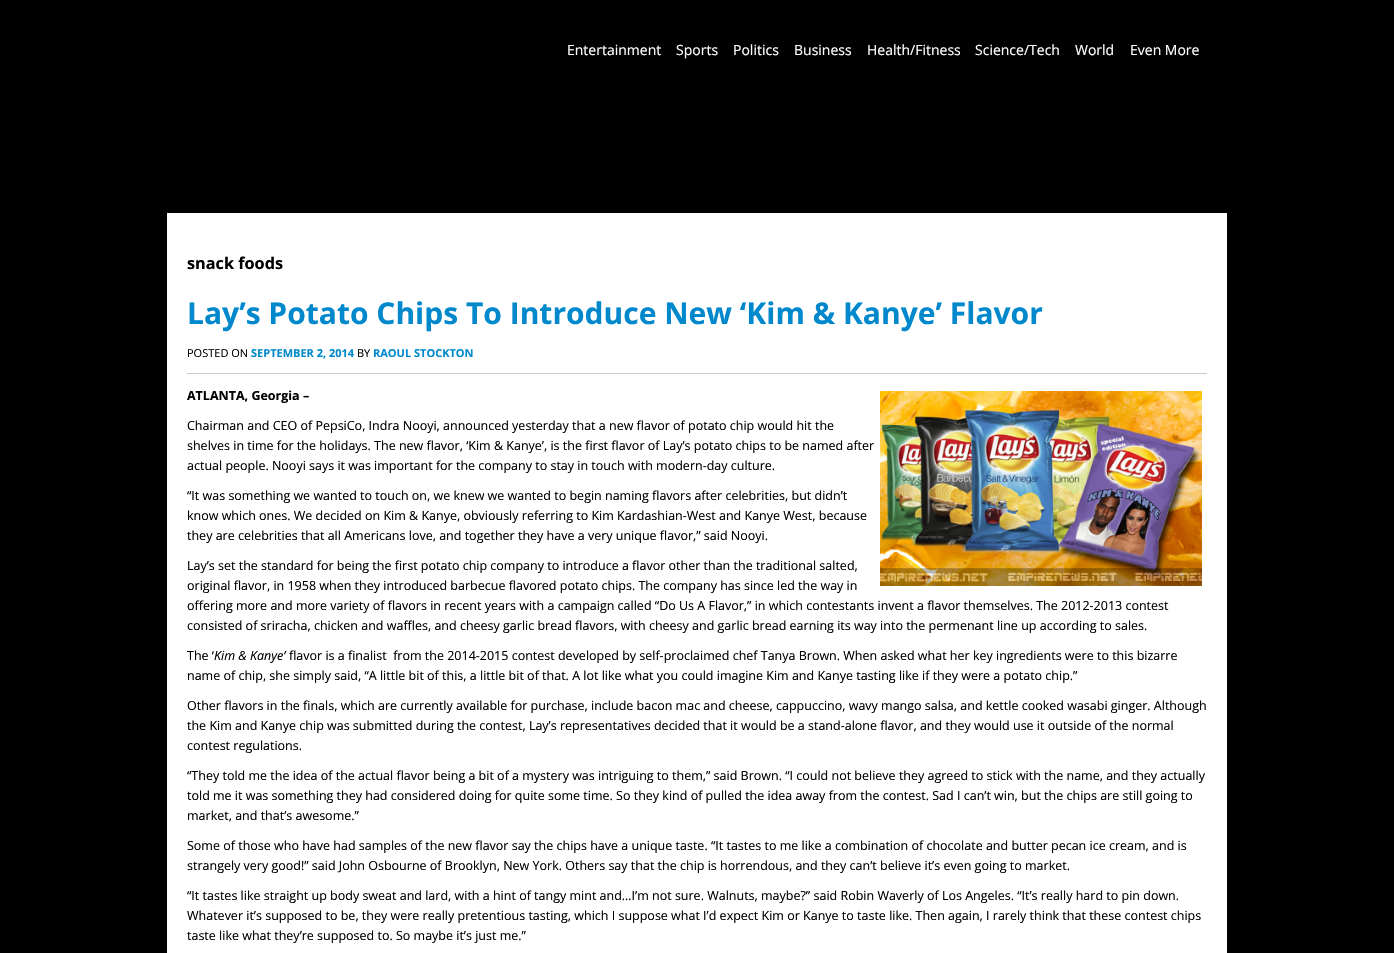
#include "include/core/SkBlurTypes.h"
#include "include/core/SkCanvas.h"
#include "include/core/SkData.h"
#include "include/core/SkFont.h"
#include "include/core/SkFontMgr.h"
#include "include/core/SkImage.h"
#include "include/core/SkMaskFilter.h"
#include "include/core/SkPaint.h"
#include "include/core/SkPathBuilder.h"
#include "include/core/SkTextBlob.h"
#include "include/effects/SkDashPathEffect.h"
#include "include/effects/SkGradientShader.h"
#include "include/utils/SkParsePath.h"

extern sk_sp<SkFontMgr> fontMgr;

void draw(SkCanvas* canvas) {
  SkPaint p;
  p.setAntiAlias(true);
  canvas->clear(SK_ColorBLACK);
  p.setColor(SK_ColorWHITE);
  canvas->drawRect(SkRect::MakeLTRB(167, 213, 1227, 953), p);
  p.setColor(SkColorSetRGB(204, 204, 204));
  canvas->drawRect(SkRect::MakeLTRB(187, 373, 1207, 374), p);
  canvas->drawImageRect(SkImages::DeferredFromEncodedData(SkData::MakeFromFileName("images/1.png")), SkRect::MakeLTRB(880, 391, 1202, 586), SkSamplingOptions());
  SkFont font1(fontMgr->matchFamilyStyle("Open Sans", SkFontStyle::Normal()), 14);
  font1.setSubpixel(true);
  p.setColor(SK_ColorWHITE);
  canvas->drawString("Entertainment", 567, 55, font1, p);
  canvas->drawString("Sports", 676, 55, font1, p);
  canvas->drawString("Politics", 733, 55, font1, p);
  canvas->drawString("Business", 794, 55, font1, p);
  canvas->drawString("Health/Fitness", 867, 55, font1, p);
  canvas->drawString("Science/Tech", 975, 55, font1, p);
  canvas->drawString("World", 1075, 55, font1, p);
  canvas->drawString("Even More", 1130, 55, font1, p);
  SkFont font2(fontMgr->matchFamilyStyle("Open Sans", SkFontStyle::Bold()), 16.25f);
  font2.setSubpixel(true);
  p.setColor(SK_ColorBLACK);
  canvas->drawString("snack foods", 187, 269, font2, p);
  SkFont font3(fontMgr->matchFamilyStyle("Open Sans", SkFontStyle::Bold()), 30);
  font3.setSubpixel(true);
  p.setColor(SkColorSetRGB(0, 136, 204));
  canvas->drawString("Lay’s Potato Chips To Introduce New ‘Kim & Kanye’ Flavor", 187, 324, font3, p);
  SkFont font4(fontMgr->matchFamilyStyle("Open Sans", SkFontStyle::Normal()), 11);
  font4.setSubpixel(true);
  p.setColor(SK_ColorBLACK);
  canvas->drawString("POSTED ON", 187, 357, font4, p);
  SkFont font5(fontMgr->matchFamilyStyle("Open Sans", SkFontStyle::Bold()), 11);
  font5.setSubpixel(true);
  p.setColor(SkColorSetRGB(0, 136, 204));
  canvas->drawString("SEPTEMBER 2, 2014", 251, 357, font5, p);
  p.setColor(SK_ColorBLACK);
  canvas->drawString("BY", 357, 357, font4, p);
  p.setColor(SkColorSetRGB(0, 136, 204));
  canvas->drawString("RAOUL STOCKTON", 373, 357, font5, p);
  SkFont font6(fontMgr->matchFamilyStyle("Open Sans", SkFontStyle::Bold()), 12.5f);
  font6.setSubpixel(true);
  p.setColor(SK_ColorBLACK);
  canvas->drawString("ATLANTA, Georgia –", 187, 400, font6, p);
  SkFont font7(fontMgr->matchFamilyStyle("Open Sans", SkFontStyle::Normal()), 12.5f);
  font7.setSubpixel(true);
  canvas->drawString("Chairman and CEO of PepsiCo, Indra Nooyi, announced yesterday that a new flavor of potato chip would hit the", 187, 430, font7, p);
  canvas->drawString("shelves in time for the holidays. The new flavor, ‘Kim & Kanye’, is the first flavor of Lay’s potato chips to be named after", 187, 450, font7, p);
  canvas->drawString("actual people. Nooyi says it was important for the company to stay in touch with modern-day culture.", 187, 470, font7, p);
  canvas->drawString("“It was something we wanted to touch on, we knew we wanted to begin naming flavors after celebrities, but didn’t", 187, 500, font7, p);
  canvas->drawString("know which ones. We decided on Kim & Kanye, obviously referring to Kim Kardashian-West and Kanye West, because", 187, 520, font7, p);
  canvas->drawString("they are celebrities that all Americans love, and together they have a very unique flavor,” said Nooyi.", 187, 540, font7, p);
  canvas->drawString("Lay’s set the standard for being the first potato chip company to introduce a flavor other than the traditional salted,", 187, 570, font7, p);
  canvas->drawString("original flavor, in 1958 when they introduced barbecue flavored potato chips. The company has since led the way in", 187, 590, font7, p);
  canvas->drawString("offering more and more variety of flavors in recent years with a campaign called “Do Us A Flavor,” in which contestants invent a flavor themselves. The 2012-2013 contest", 187, 610, font7, p);
  canvas->drawString("consisted of sriracha, chicken and waffles, and cheesy garlic bread flavors, with cheesy and garlic bread earning its way into the permenant line up according to sales.", 187, 630, font7, p);
  canvas->drawString("The ‘", 187, 660, font7, p);
  SkFont font8(fontMgr->matchFamilyStyle("Open Sans", SkFontStyle::Italic()), 12.5f);
  font8.setSubpixel(true);
  canvas->drawString("Kim & Kanye’", 214, 660, font8, p);
  canvas->drawString("flavor is a finalist  from the 2014-2015 contest developed by self-proclaimed chef Tanya Brown. When asked what her key ingredients were to this bizarre", 289, 660, font7, p);
  canvas->drawString("name of chip, she simply said, “A little bit of this, a little bit of that. A lot like what you could imagine Kim and Kanye tasting like if they were a potato chip.”", 187, 680, font7, p);
  canvas->drawString("Other flavors in the finals, which are currently available for purchase, include bacon mac and cheese, cappuccino, wavy mango salsa, and kettle cooked wasabi ginger. Although", 187, 710, font7, p);
  canvas->drawString("the Kim and Kanye chip was submitted during the contest, Lay’s representatives decided that it would be a stand-alone flavor, and they would use it outside of the normal", 187, 730, font7, p);
  canvas->drawString("contest regulations.", 187, 750, font7, p);
  canvas->drawString("“They told me the idea of the actual flavor being a bit of a mystery was intriguing to them,” said Brown. “I could not believe they agreed to stick with the name, and they actually", 187, 780, font7, p);
  canvas->drawString("told me it was something they had considered doing for quite some time. So they kind of pulled the idea away from the contest. Sad I can’t win, but the chips are still going to", 187, 800, font7, p);
  canvas->drawString("market, and that’s awesome.”", 187, 820, font7, p);
  canvas->drawString("Some of those who have had samples of the new flavor say the chips have a unique taste. “It tastes to me like a combination of chocolate and butter pecan ice cream, and is", 187, 850, font7, p);
  canvas->drawString("strangely very good!” said John Osbourne of Brooklyn, New York. Others say that the chip is horrendous, and they can’t believe it’s even going to market.", 187, 870, font7, p);
  canvas->drawString("“It tastes like straight up body sweat and lard, with a hint of tangy mint and…I’m not sure. Walnuts, maybe?” said Robin Waverly of Los Angeles. “It’s really hard to pin down.", 187, 900, font7, p);
  canvas->drawString("Whatever it’s supposed to be, they were really pretentious tasting, which I suppose what I’d expect Kim or Kanye to taste like. Then again, I rarely think that these contest chips", 187, 920, font7, p);
  canvas->drawString("taste like what they’re supposed to. So maybe it’s just me.”", 187, 940, font7, p);
}
